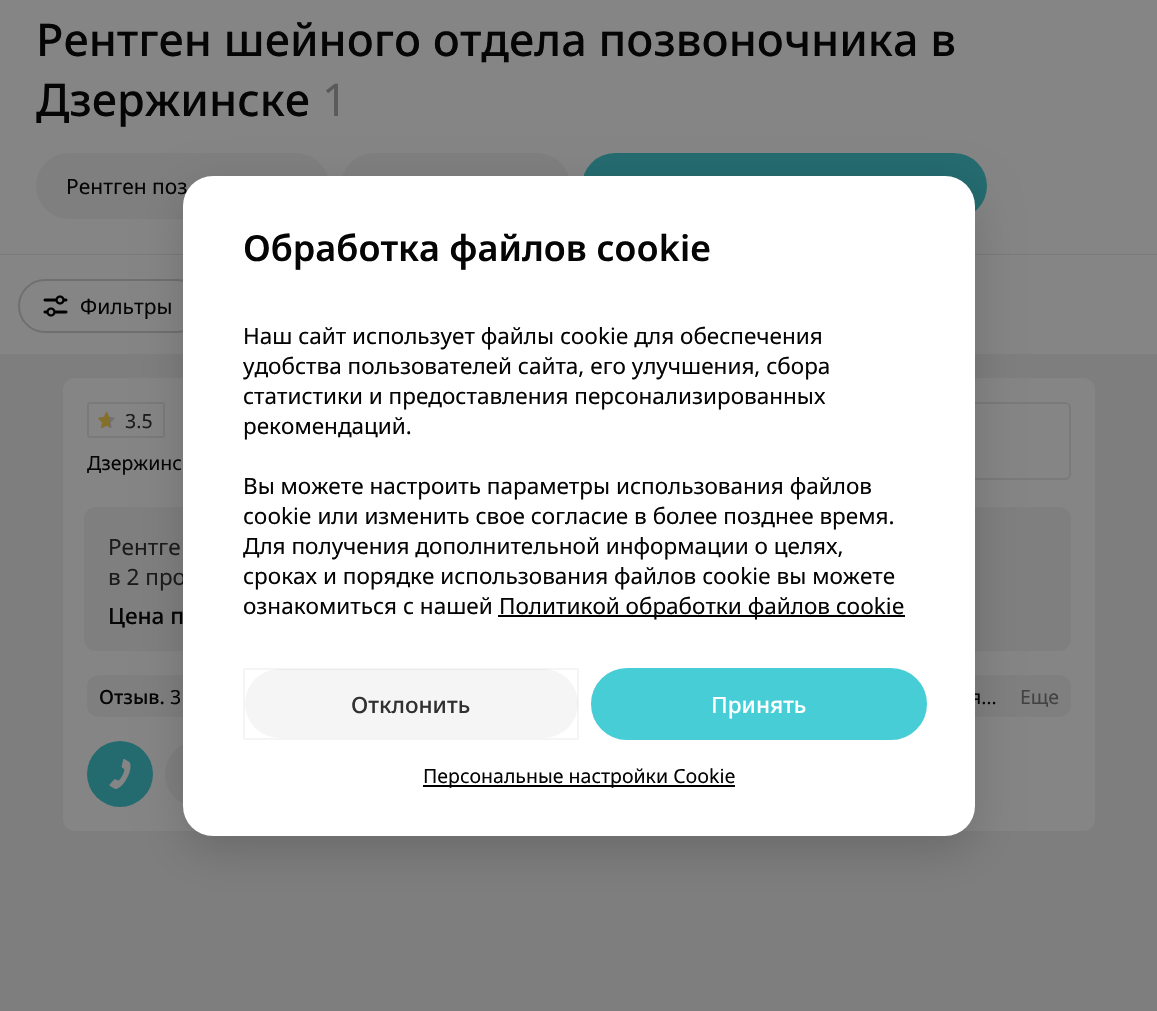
#include "include/core/SkBlurTypes.h"
#include "include/core/SkCanvas.h"
#include "include/core/SkData.h"
#include "include/core/SkFont.h"
#include "include/core/SkFontMgr.h"
#include "include/core/SkImage.h"
#include "include/core/SkMaskFilter.h"
#include "include/core/SkPaint.h"
#include "include/core/SkPathBuilder.h"
#include "include/core/SkTextBlob.h"
#include "include/effects/SkDashPathEffect.h"
#include "include/effects/SkGradientShader.h"
#include "include/utils/SkParsePath.h"

extern sk_sp<SkFontMgr> fontMgr;

void draw(SkCanvas* canvas) {
  SkPaint p;
  p.setAntiAlias(true);
  canvas->clear(SkColorSetRGB(126, 126, 126));
  p.setColor(SkColorSetRGB(133, 133, 133));
  canvas->drawRect(SkRect::MakeLTRB(0, 0, 1157, 254), p);
  p.setColor(SkColorSetRGB(127, 127, 127));
  canvas->drawRoundRect(SkRect::MakeLTRB(36, 153, 329, 219), 33, 33, p);
  canvas->drawRoundRect(SkRect::MakeLTRB(341, 153, 570, 219), 33, 33, p);
  p.setColor(SkColorSetRGB(36, 107, 111));
  canvas->drawRoundRect(SkRect::MakeLTRB(582, 153, 987, 219), 33, 33, p);
  p.setColor(SkColorSetRGB(122, 122, 122));
  canvas->drawRect(SkRect::MakeLTRB(0, 254, 1157, 255), p);
  p.setColor(SkColorSetRGB(133, 133, 133));
  canvas->drawRect(SkRect::MakeLTRB(0, 255, 1157, 354), p);
  p.setStyle(SkPaint::kStroke_Style);
  p.setStrokeWidth(2);
  p.setColor(SkColorSetRGB(111, 111, 111));
  canvas->drawRoundRect(SkRect::MakeLTRB(19, 280, 203, 332), 26, 26, p);
  canvas->drawImageRect(SkImages::DeferredFromEncodedData(SkData::MakeFromFileName("images/1.png")), SkRect::MakeLTRB(43, 295, 68, 317), SkSamplingOptions());
  p.setStyle(SkPaint::kFill_Style);
  p.setColor(SkColorSetRGB(133, 133, 133));
  canvas->drawRoundRect(SkRect::MakeLTRB(63, 378, 1095, 831), 12, 12, p);
  p.setStyle(SkPaint::kStroke_Style);
  p.setColor(SkColorSetRGB(122, 122, 122));
  canvas->drawRoundRect(SkRect::MakeLTRB(88, 403, 164, 437), 2, 2, p);
  canvas->drawImageRect(SkImages::DeferredFromEncodedData(SkData::MakeFromFileName("images/3.png")), SkRect::MakeLTRB(98, 412, 115, 428), SkSamplingOptions());
  canvas->drawImageRect(SkImages::DeferredFromEncodedData(SkData::MakeFromFileName("images/2.png")), SkRect::MakeLTRB(98, 411, 110, 429), SkSamplingOptions());
  canvas->drawRoundRect(SkRect::MakeLTRB(952, 403, 1070, 479), 5, 5, p);
  p.setStyle(SkPaint::kFill_Style);
  p.setColor(SkColorSetRGB(127, 127, 127));
  canvas->drawRoundRect(SkRect::MakeLTRB(84, 507, 572, 651), 12, 12, p);
  canvas->drawRoundRect(SkRect::MakeLTRB(584, 507, 1071, 651), 12, 12, p);
  canvas->drawRoundRect(SkRect::MakeLTRB(87, 675, 1071, 717), 12, 12, p);
  p.setColor(SkColorSetRGB(36, 107, 111));
  canvas->drawCircle(120, 774, 33, p);
  canvas->drawImageRect(SkImages::DeferredFromEncodedData(SkData::MakeFromFileName("images/4.png")), SkRect::MakeLTRB(109, 759, 131, 789), SkSamplingOptions());
  p.setColor(SkColorSetRGB(127, 127, 127));
  canvas->drawCircle(198, 774, 33, p);
  p.setColor(SkColorSetARGB(41, 0, 0, 0));
  p.setMaskFilter(SkMaskFilter::MakeBlur(kNormal_SkBlurStyle, 22.5f));
  canvas->drawRoundRect(SkRect::MakeLTRB(183, 191, 975, 851), 30, 30, p);
  p.setMaskFilter(nullptr);
  SkFont font1(fontMgr->matchFamilyStyle("Noto Sans", SkFontStyle(500, SkFontStyle::kNormal_Width, SkFontStyle::kUpright_Slant)), 45);
  font1.setSubpixel(true);
  p.setColor(SkColorSetRGB(5, 5, 5));
  canvas->drawString("Рентген шейного отдела позвоночника в", 36, 56, font1, p);
  canvas->drawString("Дзержинске", 36, 116, font1, p);
  SkFont font2(fontMgr->matchFamilyStyle("Noto Sans", SkFontStyle::Normal()), 45);
  font2.setSubpixel(true);
  p.setColor(SkColorSetRGB(90, 90, 90));
  canvas->drawString("1", 322, 116, font2, p);
  SkFont font3(fontMgr->matchFamilyStyle("Noto Sans", SkFontStyle::Normal()), 21);
  font3.setSubpixel(true);
  p.setColor(SkColorSetRGB(5, 5, 5));
  canvas->drawString("Рентген поз", 66, 194, font3, p);
  canvas->drawString("Фильтры", 80, 314, font3, p);
  SkFont font4(fontMgr->matchFamilyStyle("Noto Sans", SkFontStyle::Normal()), 19.5f);
  font4.setSubpixel(true);
  p.setColor(SkColorSetRGB(27, 27, 27));
  canvas->drawString("3.5", 125, 428, font4, p);
  p.setColor(SkColorSetRGB(5, 5, 5));
  canvas->drawString("Дзержинс", 87, 470, font4, p);
  SkFont font5(fontMgr->matchFamilyStyle("Noto Sans", SkFontStyle::Normal()), 22.5f);
  font5.setSubpixel(true);
  p.setColor(SkColorSetRGB(27, 27, 27));
  canvas->drawString("Рентге", 108, 555, font5, p);
  canvas->drawString("в 2 про", 108, 585, font5, p);
  SkFont font6(fontMgr->matchFamilyStyle("Noto Sans", SkFontStyle(500, SkFontStyle::kNormal_Width, SkFontStyle::kUpright_Slant)), 22.5f);
  font6.setSubpixel(true);
  p.setColor(SkColorSetRGB(5, 5, 5));
  canvas->drawString("Цена п", 108, 624, font6, p);
  SkFont font7(fontMgr->matchFamilyStyle("Noto Sans", SkFontStyle(500, SkFontStyle::kNormal_Width, SkFontStyle::kUpright_Slant)), 19.5f);
  font7.setSubpixel(true);
  canvas->drawString("Отзыв.", 99, 704, font7, p);
  canvas->drawString("3", 170, 704, font4, p);
  canvas->drawString("я…", 970, 704, font4, p);
  p.setColor(SkColorSetRGB(66, 66, 66));
  canvas->drawString("Еще", 1020, 704, font4, p);
  p.setColor(SK_ColorWHITE);
  canvas->drawRoundRect(SkRect::MakeLTRB(183, 176, 975, 836), 30, 30, p);
  SkFont font8(fontMgr->matchFamilyStyle("Noto Sans", SkFontStyle(600, SkFontStyle::kNormal_Width, SkFontStyle::kUpright_Slant)), 36);
  font8.setSubpixel(true);
  p.setColor(SkColorSetRGB(5, 5, 5));
  canvas->drawString("Обработка файлов cookie", 243, 261, font8, p);
  canvas->drawString("Наш сайт использует файлы cookie для обеспечения", 243, 344, font5, p);
  canvas->drawString("удобства пользователей сайта, его улучшения, сбора", 243, 374, font5, p);
  canvas->drawString("статистики и предоставления персонализированных", 243, 404, font5, p);
  canvas->drawString("рекомендаций.", 243, 434, font5, p);
  canvas->drawString("Вы можете настроить параметры использования файлов", 243, 494, font5, p);
  canvas->drawString("cookie или изменить свое согласие в более позднее время.", 243, 524, font5, p);
  canvas->drawString("Для получения дополнительной информации о целях,", 243, 554, font5, p);
  canvas->drawString("сроках и порядке использования файлов cookie вы можете", 243, 584, font5, p);
  canvas->drawString("ознакомиться с нашей", 243, 614, font5, p);
  p.setColor(SK_ColorBLACK);
  canvas->drawRect(SkRect::MakeLTRB(498, 615, 905, 617), p);
  p.setColor(SkColorSetRGB(5, 5, 5));
  canvas->drawString("Политикой обработки файлов cookie", 499, 614, font5, p);
  p.setColor(SkColorSetRGB(245, 245, 245));
  canvas->drawRoundRect(SkRect::MakeLTRB(245, 669, 578, 738), 34.5f, 34.5f, p);
  p.setStyle(SkPaint::kStroke_Style);
  p.setColor(SkColorSetARGB(10, 0, 0, 0));
  canvas->drawRect(SkRect::MakeLTRB(244, 669, 578, 739), p);
  p.setStyle(SkPaint::kFill_Style);
  p.setColor(SkColorSetRGB(49, 49, 49));
  canvas->drawString("Отклонить", 351, 713, font6, p);
  p.setColor(SkColorSetRGB(70, 205, 214));
  canvas->drawRoundRect(SkRect::MakeLTRB(592, 669, 926, 739), 35, 35, p);
  p.setStyle(SkPaint::kStroke_Style);
  canvas->drawRoundRect(SkRect::MakeLTRB(592, 669, 926, 739), 35, 35, p);
  p.setStyle(SkPaint::kFill_Style);
  p.setColor(SK_ColorWHITE);
  canvas->drawString("Принять", 711, 713, font6, p);
  p.setColor(SK_ColorBLACK);
  canvas->drawRect(SkRect::MakeLTRB(423, 785, 735, 787), p);
  p.setColor(SkColorSetRGB(5, 5, 5));
  canvas->drawString("Персональные настройки Cookie", 423, 783, font4, p);
}
